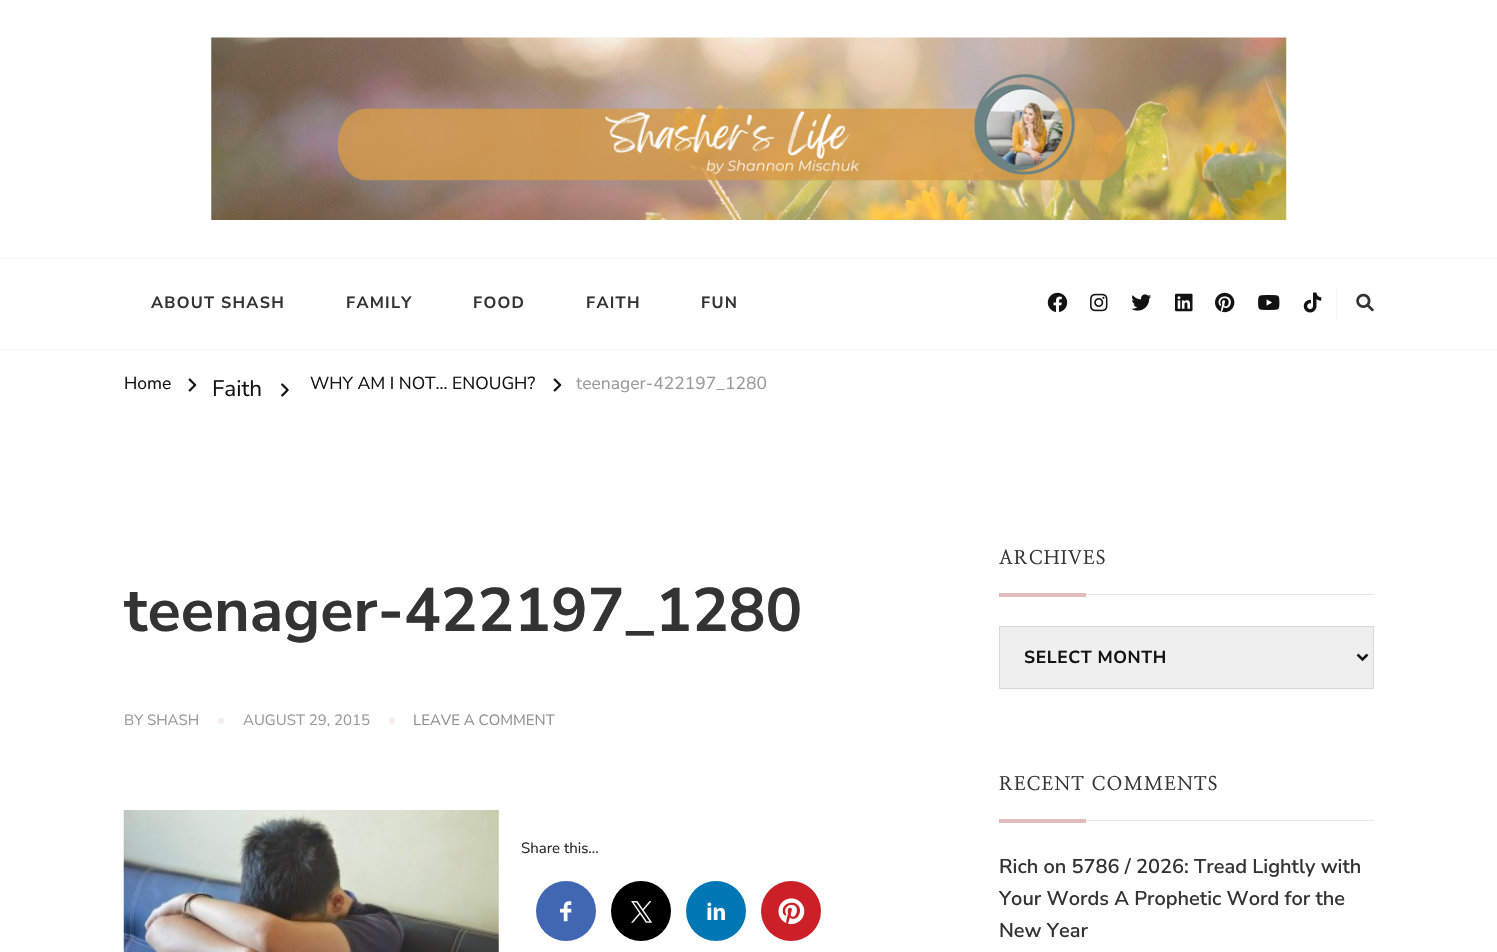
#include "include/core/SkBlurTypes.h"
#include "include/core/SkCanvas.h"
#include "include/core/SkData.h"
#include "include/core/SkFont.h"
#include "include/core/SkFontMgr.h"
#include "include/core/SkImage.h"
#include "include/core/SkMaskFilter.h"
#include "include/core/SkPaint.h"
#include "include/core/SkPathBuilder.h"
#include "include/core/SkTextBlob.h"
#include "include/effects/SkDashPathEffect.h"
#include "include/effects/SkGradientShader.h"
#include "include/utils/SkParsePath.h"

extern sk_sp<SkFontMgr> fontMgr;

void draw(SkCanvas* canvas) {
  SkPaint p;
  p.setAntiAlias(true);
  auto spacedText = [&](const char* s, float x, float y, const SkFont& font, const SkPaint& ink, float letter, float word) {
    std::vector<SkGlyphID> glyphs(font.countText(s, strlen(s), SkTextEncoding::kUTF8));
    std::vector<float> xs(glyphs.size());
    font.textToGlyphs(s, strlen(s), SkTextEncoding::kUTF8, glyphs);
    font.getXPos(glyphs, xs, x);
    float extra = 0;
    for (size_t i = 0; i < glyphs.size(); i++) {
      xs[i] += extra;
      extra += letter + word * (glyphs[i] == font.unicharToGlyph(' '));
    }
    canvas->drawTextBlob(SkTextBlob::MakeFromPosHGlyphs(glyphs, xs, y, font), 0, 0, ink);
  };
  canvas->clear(SK_ColorWHITE);
  canvas->drawImageRect(SkImages::DeferredFromEncodedData(SkData::MakeFromFileName("images/1.png")), SkRect::MakeLTRB(211, 37, 1287, 220), SkSamplingOptions());
  p.setColor(SkColorSetRGB(251, 245, 245));
  canvas->drawRect(SkRect::MakeLTRB(0, 258, 1497, 259), p);
  canvas->drawRect(SkRect::MakeLTRB(0, 349, 1497, 350), p);
  canvas->drawImageRect(SkImages::DeferredFromEncodedData(SkData::MakeFromFileName("images/2.png")), SkRect::MakeLTRB(1047, 292, 1068, 312), SkSamplingOptions());
  canvas->drawImageRect(SkImages::DeferredFromEncodedData(SkData::MakeFromFileName("images/3.png")), SkRect::MakeLTRB(1090, 293, 1108, 312), SkSamplingOptions());
  canvas->drawImageRect(SkImages::DeferredFromEncodedData(SkData::MakeFromFileName("images/4.png")), SkRect::MakeLTRB(1131, 294, 1152, 311), SkSamplingOptions());
  canvas->drawImageRect(SkImages::DeferredFromEncodedData(SkData::MakeFromFileName("images/5.png")), SkRect::MakeLTRB(1175, 293, 1193, 312), SkSamplingOptions());
  canvas->drawImageRect(SkImages::DeferredFromEncodedData(SkData::MakeFromFileName("images/6.png")), SkRect::MakeLTRB(1215, 292, 1235, 313), SkSamplingOptions());
  canvas->drawImageRect(SkImages::DeferredFromEncodedData(SkData::MakeFromFileName("images/7.png")), SkRect::MakeLTRB(1258, 295, 1280, 310), SkSamplingOptions());
  canvas->drawImageRect(SkImages::DeferredFromEncodedData(SkData::MakeFromFileName("images/8.png")), SkRect::MakeLTRB(1303, 292, 1322, 313), SkSamplingOptions());
  canvas->drawRect(SkRect::MakeLTRB(1336, 288, 1337, 320), p);
  canvas->drawImageRect(SkImages::DeferredFromEncodedData(SkData::MakeFromFileName("images/9.png")), SkRect::MakeLTRB(1356, 293, 1374, 312), SkSamplingOptions());
  canvas->drawImageRect(SkImages::DeferredFromEncodedData(SkData::MakeFromFileName("images/10.png")), SkRect::MakeLTRB(188, 378, 197, 392), SkSamplingOptions());
  canvas->drawImageRect(SkImages::DeferredFromEncodedData(SkData::MakeFromFileName("images/11.png")), SkRect::MakeLTRB(281, 383, 289, 397), SkSamplingOptions());
  canvas->drawImageRect(SkImages::DeferredFromEncodedData(SkData::MakeFromFileName("images/10.png")), SkRect::MakeLTRB(553, 378, 562, 392), SkSamplingOptions());
  p.setColor(SkColorSetRGB(246, 235, 235));
  canvas->drawCircle(221, 721, 3, p);
  canvas->drawCircle(392, 721, 3, p);
  canvas->drawImageRect(SkImages::DeferredFromEncodedData(SkData::MakeFromFileName("images/12.png")), SkRect::MakeLTRB(123, 810, 499, 952), SkSamplingOptions());
  p.setColor(SkColorSetRGB(66, 103, 178));
  canvas->drawCircle(566, 911, 30, p);
  canvas->drawImageRect(SkImages::DeferredFromEncodedData(SkData::MakeFromFileName("images/13.png")), SkRect::MakeLTRB(560, 901, 572, 922), SkSamplingOptions());
  p.setColor(SK_ColorBLACK);
  canvas->drawCircle(641, 911, 30, p);
  canvas->drawImageRect(SkImages::DeferredFromEncodedData(SkData::MakeFromFileName("images/14.png")), SkRect::MakeLTRB(631, 901, 653, 923), SkSamplingOptions());
  p.setColor(SkColorSetRGB(0, 119, 181));
  canvas->drawCircle(716, 911, 30, p);
  canvas->drawImageRect(SkImages::DeferredFromEncodedData(SkData::MakeFromFileName("images/15.png")), SkRect::MakeLTRB(707, 902, 726, 920), SkSamplingOptions());
  p.setColor(SkColorSetRGB(203, 32, 39));
  canvas->drawCircle(791, 911, 30, p);
  canvas->drawImageRect(SkImages::DeferredFromEncodedData(SkData::MakeFromFileName("images/16.png")), SkRect::MakeLTRB(778, 898, 805, 925), SkSamplingOptions());
  p.setColor(SkColorSetRGB(230, 230, 230));
  canvas->drawRect(SkRect::MakeLTRB(1086, 594, 1374, 595), p);
  p.setColor(SkColorSetRGB(225, 189, 189));
  canvas->drawRect(SkRect::MakeLTRB(999, 593, 1086, 597), p);
  p.setColor(SkColorSetRGB(239, 239, 239));
  canvas->drawRect(SkRect::MakeLTRB(999.5f, 626.5f, 1373.5f, 688.5f), p);
  p.setStyle(SkPaint::kStroke_Style);
  p.setStrokeWidth(1);
  p.setColor(SkColorSetRGB(215, 215, 215));
  canvas->drawRect(SkRect::MakeLTRB(999.5f, 626.5f, 1373.5f, 688.5f), p);
  p.setStrokeWidth(2.5f);
  p.setColor(SkColorSetRGB(18, 18, 18));
  canvas->drawPath(SkPathBuilder().moveTo(1357.5f, 654.5f).lineTo(1362.5f, 659.5f).lineTo(1367.5f, 654.5f).detach(), p);
  p.setStyle(SkPaint::kFill_Style);
  p.setColor(SkColorSetRGB(230, 230, 230));
  canvas->drawRect(SkRect::MakeLTRB(1086, 820, 1374, 821), p);
  p.setColor(SkColorSetRGB(225, 189, 189));
  canvas->drawRect(SkRect::MakeLTRB(999, 819, 1086, 823), p);
  SkFont font1(fontMgr->matchFamilyStyle("Nunito Sans", SkFontStyle::Bold()), 16.25f);
  font1.setSubpixel(true);
  p.setColor(SkColorSetRGB(51, 51, 51));
  spacedText("ABOUT SHASH", 151, 308, font1, p, 1.25f, 0);
  spacedText("FAMILY", 346, 308, font1, p, 1.25f, 0);
  spacedText("FOOD", 473, 308, font1, p, 1.25f, 0);
  spacedText("FAITH", 586, 308, font1, p, 1.25f, 0);
  spacedText("FUN", 701, 308, font1, p, 1.25f, 0);
  SkFont font2(fontMgr->matchFamilyStyle("Nunito Sans", SkFontStyle::Normal()), 17.5f);
  font2.setSubpixel(true);
  p.setColor(SkColorSetRGB(18, 18, 18));
  canvas->drawString("Home", 124, 389, font2, p);
  SkFont font3(fontMgr->matchFamilyStyle("Nunito Sans", SkFontStyle::Normal()), 22.5f);
  font3.setSubpixel(true);
  canvas->drawString("Faith", 212, 396, font3, p);
  canvas->drawString("WHY AM I NOT... ENOUGH?", 310, 389, font2, p);
  p.setColor(SkColorSetRGB(153, 153, 153));
  canvas->drawString("teenager-422197_1280", 576, 389, font2, p);
  SkFont font4(fontMgr->matchFamilyStyle("Nunito Sans", SkFontStyle::Bold()), 61.25f);
  font4.setSubpixel(true);
  p.setColor(SkColorSetRGB(51, 51, 51));
  canvas->drawString("teenager-422197_1280", 124, 631, font4, p);
  SkFont font5(fontMgr->matchFamilyStyle("Nunito Sans", SkFontStyle::Normal()), 15);
  font5.setSubpixel(true);
  p.setColor(SkColorSetRGB(153, 153, 153));
  canvas->drawString("BY SHASH", 124, 725, font5, p);
  canvas->drawString("AUGUST 29, 2015", 243, 725, font5, p);
  p.setColor(SkColorSetRGB(144, 144, 144));
  canvas->drawString("LEAVE A COMMENT", 413, 725, font5, p);
  p.setColor(SkColorSetRGB(39, 39, 39));
  canvas->drawString("Share this...", 521, 853, font5, p);
  SkFont font6(fontMgr->matchFamilyStyle("NanumMyeongjo", SkFontStyle::Bold()), 18.75f);
  font6.setSubpixel(true);
  p.setColor(SkColorSetRGB(51, 51, 51));
  spacedText("ARCHIVES", 999, 564, font6, p, 1.25f, 0);
  SkFont font7(fontMgr->matchFamilyStyle("Nunito Sans", SkFontStyle::Bold()), 17.5f);
  font7.setSubpixel(true);
  p.setColor(SkColorSetRGB(18, 18, 18));
  spacedText("SELECT MONTH", 1024, 663, font7, p, 0.6f, 0);
  p.setColor(SkColorSetRGB(51, 51, 51));
  spacedText("RECENT COMMENTS", 999, 790, font6, p, 1.25f, 0);
  SkFont font8(fontMgr->matchFamilyStyle("Nunito Sans", SkFontStyle(600, SkFontStyle::kNormal_Width, SkFontStyle::kUpright_Slant)), 20);
  font8.setSubpixel(true);
  canvas->drawString("Rich on 5786 / 2026: Tread Lightly with", 999, 873, font8, p);
  canvas->drawString("Your Words A Prophetic Word for the", 999, 905, font8, p);
  canvas->drawString("New Year", 999, 937, font8, p);
}
